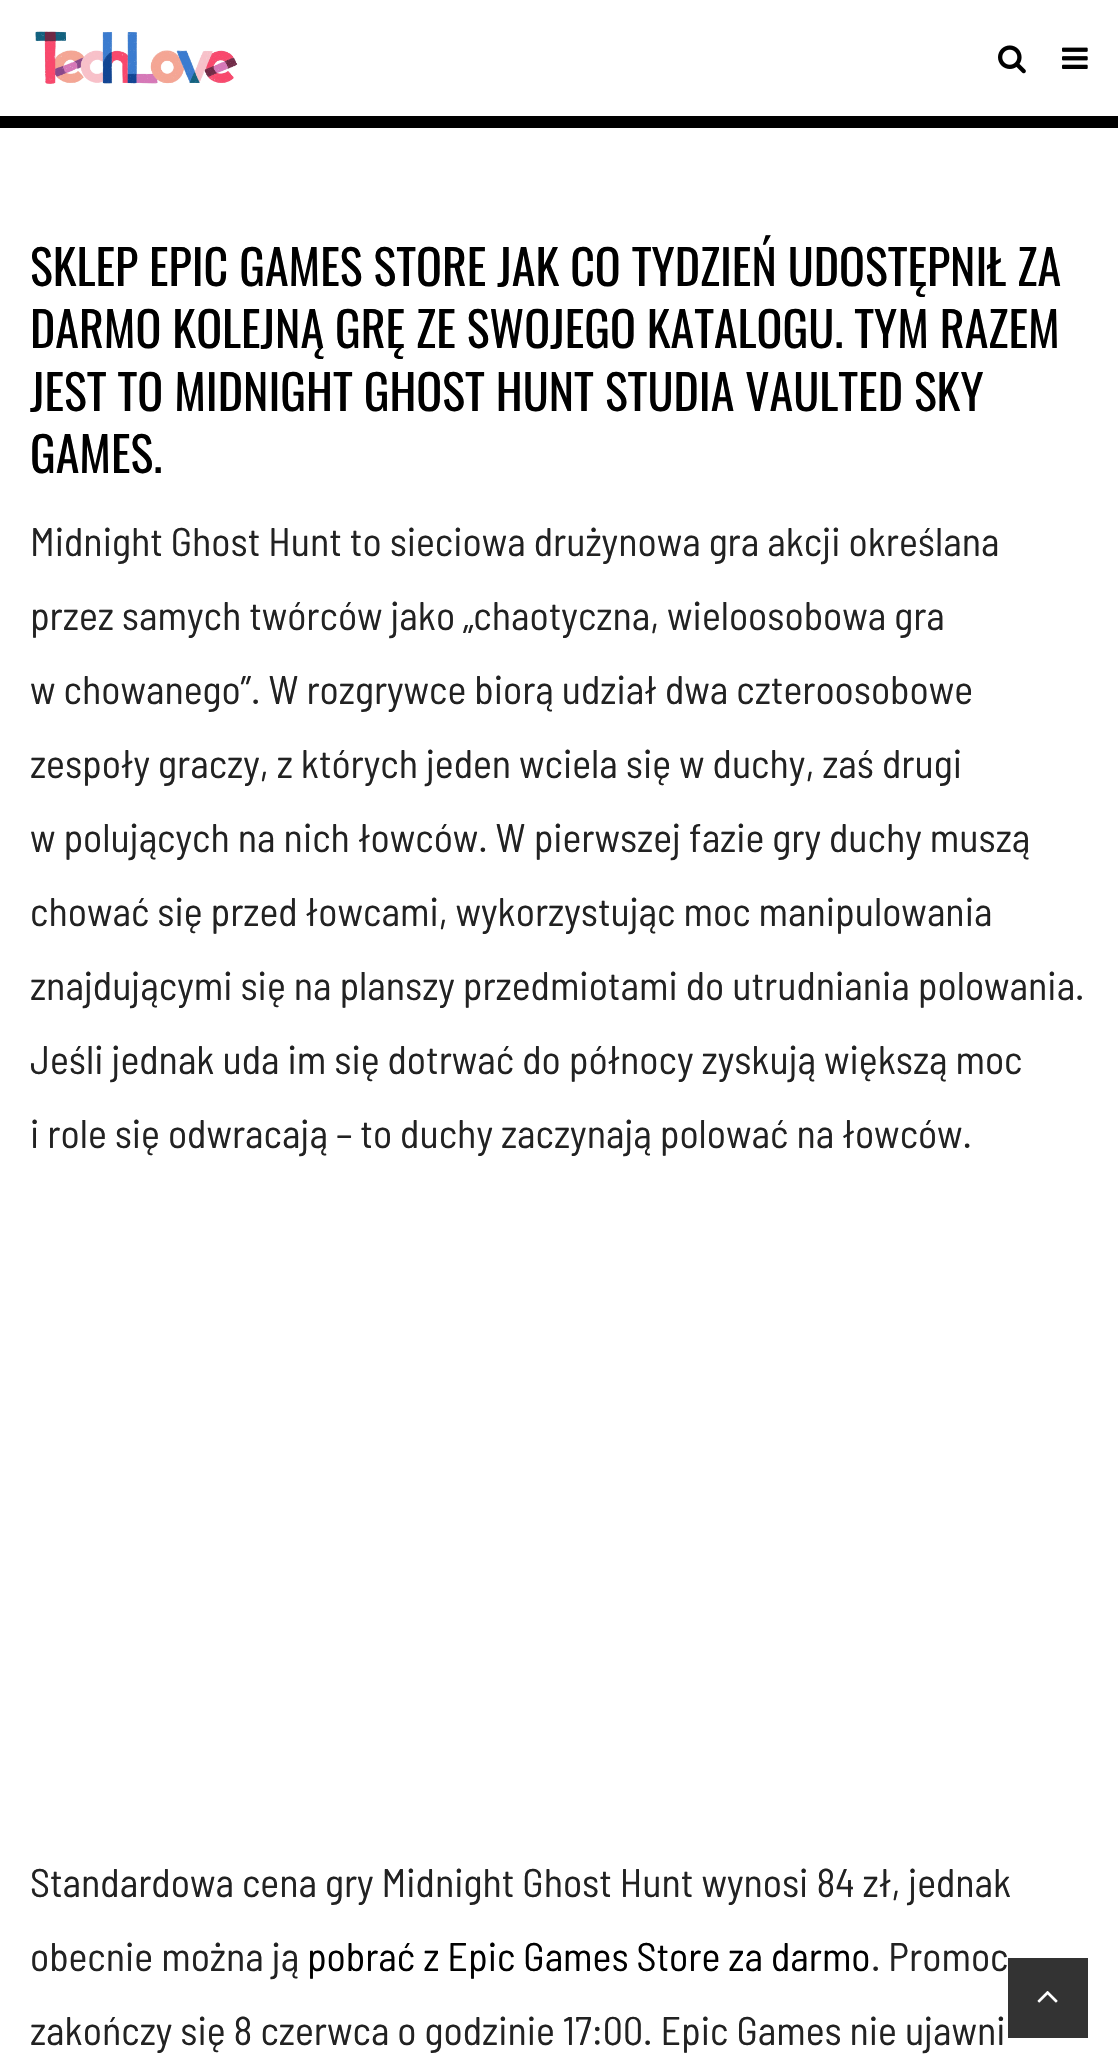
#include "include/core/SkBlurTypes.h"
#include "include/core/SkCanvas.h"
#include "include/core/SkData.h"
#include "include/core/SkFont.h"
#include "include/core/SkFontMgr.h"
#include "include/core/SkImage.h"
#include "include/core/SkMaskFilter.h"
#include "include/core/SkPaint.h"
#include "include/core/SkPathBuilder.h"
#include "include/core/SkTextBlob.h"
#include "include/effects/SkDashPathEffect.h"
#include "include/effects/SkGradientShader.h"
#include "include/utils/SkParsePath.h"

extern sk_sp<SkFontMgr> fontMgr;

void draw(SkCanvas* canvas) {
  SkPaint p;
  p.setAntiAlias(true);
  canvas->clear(SK_ColorWHITE);
  canvas->drawImageRect(SkImages::DeferredFromEncodedData(SkData::MakeFromFileName("images/1.png")), SkRect::MakeLTRB(35, 31, 238, 84), SkSamplingOptions());
  canvas->drawImageRect(SkImages::DeferredFromEncodedData(SkData::MakeFromFileName("images/2.png")), SkRect::MakeLTRB(998, 45, 1026, 74), SkSamplingOptions());
  canvas->drawImageRect(SkImages::DeferredFromEncodedData(SkData::MakeFromFileName("images/3.png")), SkRect::MakeLTRB(1062, 47, 1088, 69), SkSamplingOptions());
  p.setColor(SK_ColorBLACK);
  canvas->drawRect(SkRect::MakeLTRB(0, 116, 1118, 128), p);
  p.setColor(SkColorSetARGB(204, 0, 0, 0));
  canvas->drawRect(SkRect::MakeLTRB(1008, 1958, 1088, 2038), p);
  canvas->drawImageRect(SkImages::DeferredFromEncodedData(SkData::MakeFromFileName("images/4.png")), SkRect::MakeLTRB(1037, 1991, 1058, 2003), SkSamplingOptions());
  SkFont font1(fontMgr->matchFamilyStyle("Oswald", SkFontStyle::Normal()), 48);
  font1.setSubpixel(true);
  p.setColor(SK_ColorBLACK);
  canvas->drawString("SKLEP EPIC GAMES STORE JAK CO TYDZIEŃ UDOSTĘPNIŁ ZA", 30, 286, font1, p);
  canvas->drawString("DARMO KOLEJNĄ GRĘ ZE SWOJEGO KATALOGU. TYM RAZEM", 30, 348, font1, p);
  canvas->drawString("JEST TO MIDNIGHT GHOST HUNT STUDIA VAULTED SKY", 30, 411, font1, p);
  canvas->drawString("GAMES.", 30, 473, font1, p);
  SkFont font2(fontMgr->matchFamilyStyle("Barlow Semi Condensed", SkFontStyle::Normal()), 40);
  font2.setSubpixel(true);
  p.setColor(SkColorSetRGB(34, 34, 34));
  canvas->drawString("Midnight Ghost Hunt to sieciowa drużynowa gra akcji określana", 30, 556, font2, p);
  canvas->drawString("przez samych twórców jako „chaotyczna, wieloosobowa gra", 30, 630, font2, p);
  canvas->drawString("w chowanego”. W rozgrywce biorą udział dwa czteroosobowe", 30, 704, font2, p);
  canvas->drawString("zespoły graczy, z których jeden wciela się w duchy, zaś drugi", 30, 778, font2, p);
  canvas->drawString("w polujących na nich łowców. W pierwszej fazie gry duchy muszą", 30, 852, font2, p);
  canvas->drawString("chować się przed łowcami, wykorzystując moc manipulowania", 30, 926, font2, p);
  canvas->drawString("znajdującymi się na planszy przedmiotami do utrudniania polowania.", 30, 1000, font2, p);
  canvas->drawString("Jeśli jednak uda im się dotrwać do północy zyskują większą moc", 30, 1074, font2, p);
  canvas->drawString("i role się odwracają – to duchy zaczynają polować na łowców.", 30, 1148, font2, p);
  canvas->drawString("Standardowa cena gry Midnight Ghost Hunt wynosi 84 zł, jednak", 30, 1897, font2, p);
  canvas->drawString("obecnie można ją", 30, 1971, font2, p);
  p.setColor(SK_ColorBLACK);
  canvas->drawString("pobrać z Epic Games Store za darmo", 307, 1971, font2, p);
  p.setColor(SkColorSetRGB(34, 34, 34));
  canvas->drawString(". Promoc", 871, 1971, font2, p);
  canvas->drawString("zakończy się 8 czerwca o godzinie 17:00. Epic Games nie ujawni", 30, 2045, font2, p);
}
